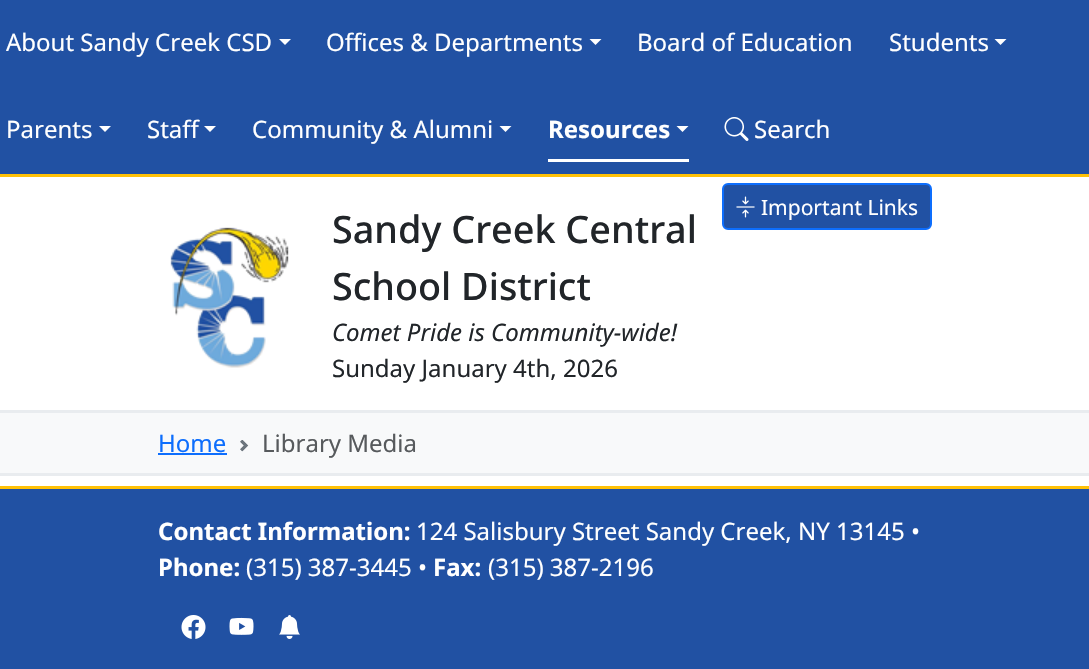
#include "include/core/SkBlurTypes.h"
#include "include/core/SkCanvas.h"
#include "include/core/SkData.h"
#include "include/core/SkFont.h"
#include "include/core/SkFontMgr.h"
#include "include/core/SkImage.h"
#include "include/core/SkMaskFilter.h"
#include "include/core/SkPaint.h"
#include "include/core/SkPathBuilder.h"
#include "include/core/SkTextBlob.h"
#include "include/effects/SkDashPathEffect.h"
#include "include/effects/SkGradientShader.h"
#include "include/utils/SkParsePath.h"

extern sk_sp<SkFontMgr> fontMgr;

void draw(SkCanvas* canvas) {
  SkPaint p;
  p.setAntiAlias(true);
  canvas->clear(SK_ColorWHITE);
  p.setColor(SkColorSetRGB(33, 81, 163));
  canvas->drawRect(SkRect::MakeLTRB(0, 0, 1089, 174), p);
  p.setColor(SkColorSetRGB(255, 193, 7));
  canvas->drawRect(SkRect::MakeLTRB(0, 174, 1089, 177), p);
  p.setColor(SK_ColorWHITE);
  canvas->drawPath(SkPathBuilder().moveTo(279, 39).lineTo(291, 39).lineTo(285, 45).close().detach(), p);
  canvas->drawPath(SkPathBuilder().moveTo(589.5f, 39).lineTo(601.5f, 39).lineTo(595.5f, 45).close().detach(), p);
  canvas->drawPath(SkPathBuilder().moveTo(994.5f, 39).lineTo(1006.5f, 39).lineTo(1000.5f, 45).close().detach(), p);
  canvas->drawPath(SkPathBuilder().moveTo(99, 126).lineTo(111, 126).lineTo(105, 132).close().detach(), p);
  canvas->drawPath(SkPathBuilder().moveTo(204, 126).lineTo(216, 126).lineTo(210, 132).close().detach(), p);
  canvas->drawPath(SkPathBuilder().moveTo(499.5f, 126).lineTo(511.5f, 126).lineTo(505.5f, 132).close().detach(), p);
  canvas->drawRect(SkRect::MakeLTRB(548, 159, 689, 162), p);
  canvas->drawPath(SkPathBuilder().moveTo(676.5f, 126).lineTo(688.5f, 126).lineTo(682.5f, 132).close().detach(), p);
  canvas->drawImageRect(SkImages::DeferredFromEncodedData(SkData::MakeFromFileName("images/1.png")), SkRect::MakeLTRB(724, 117, 749, 141), SkSamplingOptions());
  p.setColor(SkColorSetRGB(33, 81, 163));
  canvas->drawRoundRect(SkRect::MakeLTRB(723, 184, 931, 229), 5, 5, p);
  p.setStyle(SkPaint::kStroke_Style);
  p.setStrokeWidth(2);
  p.setColor(SkColorSetRGB(13, 110, 253));
  canvas->drawRoundRect(SkRect::MakeLTRB(723, 184, 931, 229), 5, 5, p);
  canvas->drawImageRect(SkImages::DeferredFromEncodedData(SkData::MakeFromFileName("images/2.png")), SkRect::MakeLTRB(736, 196, 755, 218), SkSamplingOptions());
  canvas->drawImageRect(SkImages::DeferredFromEncodedData(SkData::MakeFromFileName("images/3.png")), SkRect::MakeLTRB(170, 227, 289, 368), SkSamplingOptions());
  p.setStyle(SkPaint::kFill_Style);
  p.setColor(SkColorSetRGB(248, 249, 250));
  canvas->drawRect(SkRect::MakeLTRB(0, 413, 1089, 473), p);
  p.setColor(SkColorSetRGB(233, 236, 239));
  canvas->drawRect(SkRect::MakeLTRB(0, 410, 1089, 413), p);
  canvas->drawRect(SkRect::MakeLTRB(0, 473, 1089, 476), p);
  p.setColor(SkColorSetRGB(13, 110, 253));
  canvas->drawRect(SkRect::MakeLTRB(158, 453, 227, 455), p);
  canvas->drawImageRect(SkImages::DeferredFromEncodedData(SkData::MakeFromFileName("images/4.png")), SkRect::MakeLTRB(240, 440, 249, 452), SkSamplingOptions());
  p.setColor(SkColorSetRGB(33, 81, 163));
  canvas->drawRect(SkRect::MakeLTRB(0, 489, 1089, 669), p);
  p.setColor(SkColorSetRGB(255, 193, 7));
  canvas->drawRect(SkRect::MakeLTRB(0, 486, 1089, 489), p);
  canvas->drawImageRect(SkImages::DeferredFromEncodedData(SkData::MakeFromFileName("images/5.png")), SkRect::MakeLTRB(181, 615, 206, 639), SkSamplingOptions());
  canvas->drawImageRect(SkImages::DeferredFromEncodedData(SkData::MakeFromFileName("images/6.png")), SkRect::MakeLTRB(229, 617, 254, 635), SkSamplingOptions());
  canvas->drawImageRect(SkImages::DeferredFromEncodedData(SkData::MakeFromFileName("images/7.png")), SkRect::MakeLTRB(279, 615, 300, 639), SkSamplingOptions());
  SkFont font1(fontMgr->matchFamilyStyle("Noto Sans", SkFontStyle::Normal()), 24);
  font1.setSubpixel(true);
  p.setColor(SK_ColorWHITE);
  canvas->drawString("About Sandy Creek CSD", 6, 51, font1, p);
  canvas->drawString("Offices & Departments", 326, 51, font1, p);
  canvas->drawString("Board of Education", 637, 51, font1, p);
  canvas->drawString("Students", 889, 51, font1, p);
  canvas->drawString("Parents", 6, 138, font1, p);
  canvas->drawString("Staff", 147, 138, font1, p);
  canvas->drawString("Community & Alumni", 252, 138, font1, p);
  SkFont font2(fontMgr->matchFamilyStyle("Noto Sans", SkFontStyle::Bold()), 24);
  font2.setSubpixel(true);
  canvas->drawString("Resources", 548, 138, font2, p);
  canvas->drawString("Search", 754, 138, font1, p);
  SkFont font3(fontMgr->matchFamilyStyle("Noto Sans", SkFontStyle::Normal()), 21);
  font3.setSubpixel(true);
  canvas->drawString("Important Links", 761, 215, font3, p);
  SkFont font4(fontMgr->matchFamilyStyle("Noto Sans", SkFontStyle(500, SkFontStyle::kNormal_Width, SkFontStyle::kUpright_Slant)), 37.75f);
  font4.setSubpixel(true);
  p.setColor(SkColorSetRGB(33, 37, 41));
  canvas->drawString("Sandy Creek Central", 332, 243, font4, p);
  canvas->drawString("School District", 332, 300, font4, p);
  SkFont font5(fontMgr->matchFamilyStyle("Noto Sans", SkFontStyle::Italic()), 24);
  font5.setSubpixel(true);
  canvas->drawString("Comet Pride is Community-wide!", 332, 341, font5, p);
  canvas->drawString("Sunday January 4th, 2026", 332, 377, font1, p);
  p.setColor(SkColorSetRGB(13, 110, 253));
  canvas->drawString("Home", 158, 452, font1, p);
  p.setColor(SkColorSetRGB(87, 90, 93));
  canvas->drawString("Library Media", 262, 452, font1, p);
  p.setColor(SK_ColorWHITE);
  canvas->drawString("Contact Information:", 158, 540, font2, p);
  canvas->drawString("124 Salisbury Street Sandy Creek, NY 13145 •", 416, 540, font1, p);
  canvas->drawString("Phone:", 158, 576, font2, p);
  canvas->drawString("(315) 387-3445 •", 246, 576, font1, p);
  canvas->drawString("Fax:", 433, 576, font2, p);
  canvas->drawString("(315) 387-2196", 488, 576, font1, p);
}
